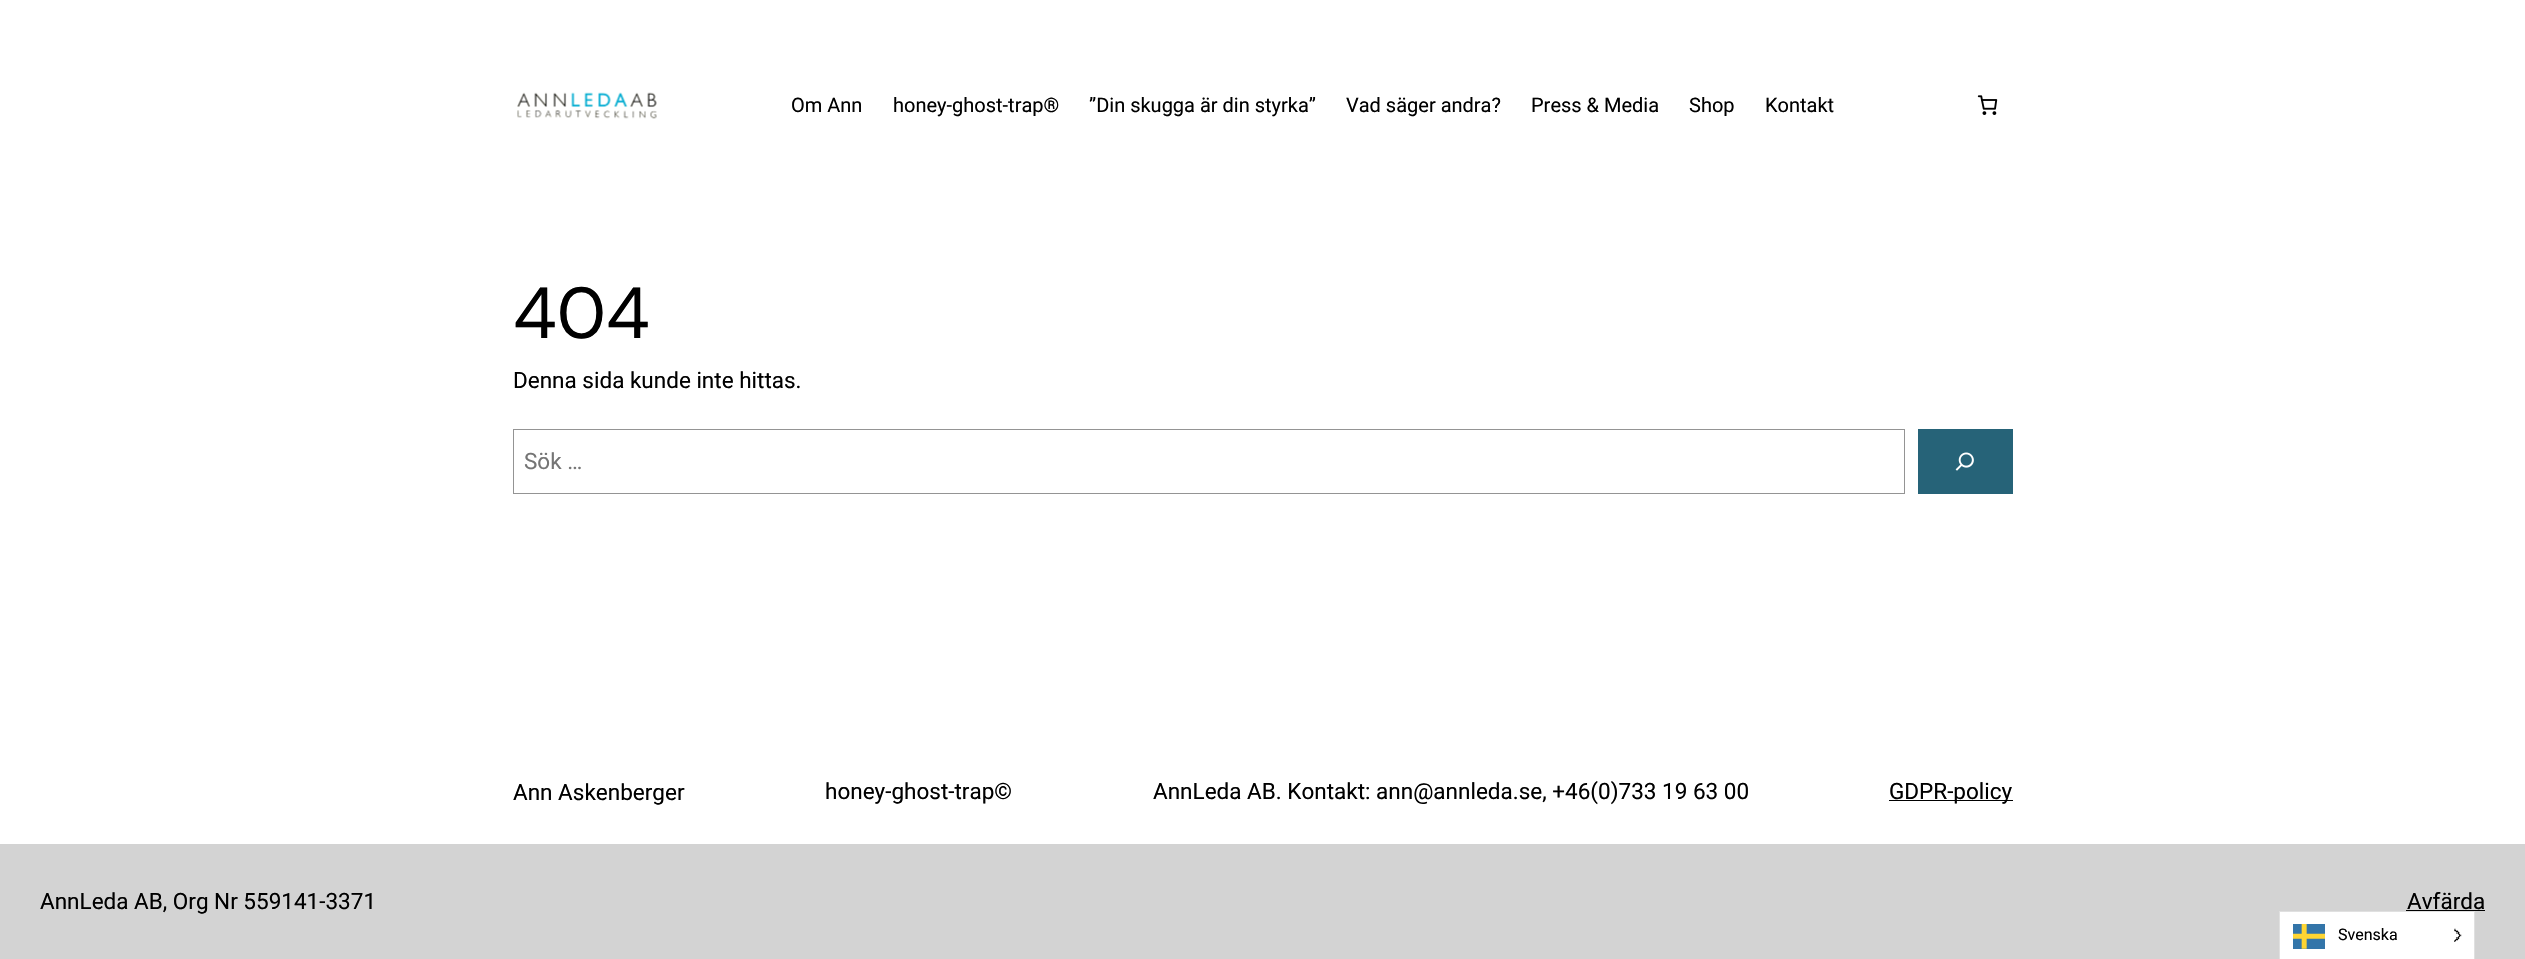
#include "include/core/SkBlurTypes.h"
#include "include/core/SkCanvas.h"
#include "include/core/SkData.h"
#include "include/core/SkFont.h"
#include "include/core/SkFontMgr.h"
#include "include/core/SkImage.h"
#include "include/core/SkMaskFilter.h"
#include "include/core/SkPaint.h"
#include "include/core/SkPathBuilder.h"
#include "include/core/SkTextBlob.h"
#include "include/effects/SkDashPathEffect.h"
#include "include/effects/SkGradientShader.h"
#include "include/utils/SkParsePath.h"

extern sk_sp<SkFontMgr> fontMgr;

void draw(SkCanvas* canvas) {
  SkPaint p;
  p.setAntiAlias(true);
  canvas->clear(SK_ColorWHITE);
  canvas->drawImageRect(SkImages::DeferredFromEncodedData(SkData::MakeFromFileName("images/1.png")), SkRect::MakeLTRB(517, 92, 657, 119), SkSamplingOptions());
  canvas->drawImageRect(SkImages::DeferredFromEncodedData(SkData::MakeFromFileName("images/2.png")), SkRect::MakeLTRB(1977, 95, 1998, 115), SkSamplingOptions());
  p.setStyle(SkPaint::kStroke_Style);
  p.setStrokeWidth(1);
  p.setColor(SkColorSetRGB(148, 148, 148));
  canvas->drawRect(SkRect::MakeLTRB(513.5f, 429.5f, 1904.5f, 493.5f), p);
  p.setStyle(SkPaint::kFill_Style);
  p.setColor(SkColorSetRGB(38, 99, 120));
  canvas->drawRect(SkRect::MakeLTRB(1918, 429, 2013, 494), p);
  canvas->drawImageRect(SkImages::DeferredFromEncodedData(SkData::MakeFromFileName("images/3.png")), SkRect::MakeLTRB(1955, 452, 1974, 471), SkSamplingOptions());
  p.setColor(SK_ColorBLACK);
  canvas->drawRect(SkRect::MakeLTRB(1889, 800, 2013, 801), p);
  p.setColor(SkColorSetRGB(211, 211, 211));
  canvas->drawRect(SkRect::MakeLTRB(0, 844, 2525, 959), p);
  p.setColor(SK_ColorBLACK);
  canvas->drawRect(SkRect::MakeLTRB(2406, 910, 2485, 911), p);
  p.setColor(SK_ColorWHITE);
  canvas->drawRect(SkRect::MakeLTRB(2279.5f, 911.5f, 2474.5f, 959.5f), p);
  p.setStyle(SkPaint::kStroke_Style);
  p.setColor(SkColorSetRGB(224, 224, 224));
  canvas->drawRect(SkRect::MakeLTRB(2279.5f, 911.5f, 2474.5f, 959.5f), p);
  canvas->drawImageRect(SkImages::DeferredFromEncodedData(SkData::MakeFromFileName("images/4.png")), SkRect::MakeLTRB(2293, 924, 2325, 949), SkSamplingOptions());
  canvas->drawImageRect(SkImages::DeferredFromEncodedData(SkData::MakeFromFileName("images/5.png")), SkRect::MakeLTRB(2454, 928, 2462, 942), SkSamplingOptions());
  SkFont font1(fontMgr->matchFamilyStyle("Roboto", SkFontStyle::Normal()), 20);
  font1.setSubpixel(true);
  p.setStyle(SkPaint::kFill_Style);
  p.setColor(SK_ColorBLACK);
  canvas->drawString("Om Ann", 791, 112, font1, p);
  canvas->drawString("honey-ghost-trap®", 893, 112, font1, p);
  canvas->drawString("”Din skugga är din styrka”", 1089, 112, font1, p);
  canvas->drawString("Vad säger andra?", 1346, 112, font1, p);
  canvas->drawString("Press & Media", 1531, 112, font1, p);
  canvas->drawString("Shop", 1689, 112, font1, p);
  canvas->drawString("Kontakt", 1765, 112, font1, p);
  SkFont font2(fontMgr->matchFamilyStyle("DM Sans", SkFontStyle::Normal()), 72);
  font2.setSubpixel(true);
  canvas->drawString("404", 513, 338, font2, p);
  SkFont font3(fontMgr->matchFamilyStyle("Roboto", SkFontStyle::Normal()), 22.5f);
  font3.setSubpixel(true);
  canvas->drawString("Denna sida kunde inte hittas.", 513, 388, font3, p);
  p.setColor(SkColorSetRGB(117, 117, 117));
  canvas->drawString("Sök …", 524, 469, font3, p);
  p.setColor(SK_ColorBLACK);
  canvas->drawString("Ann Askenberger", 513, 800, font3, p);
  canvas->drawString("honey-ghost-trap©", 825, 799, font3, p);
  canvas->drawString("AnnLeda AB. Kontakt: ann@annleda.se, +46(0)733 19 63 00", 1153, 799, font3, p);
  canvas->drawString("GDPR-policy", 1889, 799, font3, p);
  canvas->drawString("AnnLeda AB, Org Nr 559141-3371", 40, 909, font3, p);
  canvas->drawString("Avfärda", 2407, 909, font3, p);
  SkFont font4(fontMgr->matchFamilyStyle("Roboto", SkFontStyle::Normal()), 16);
  font4.setSubpixel(true);
  canvas->drawString("Svenska", 2338, 940, font4, p);
}
